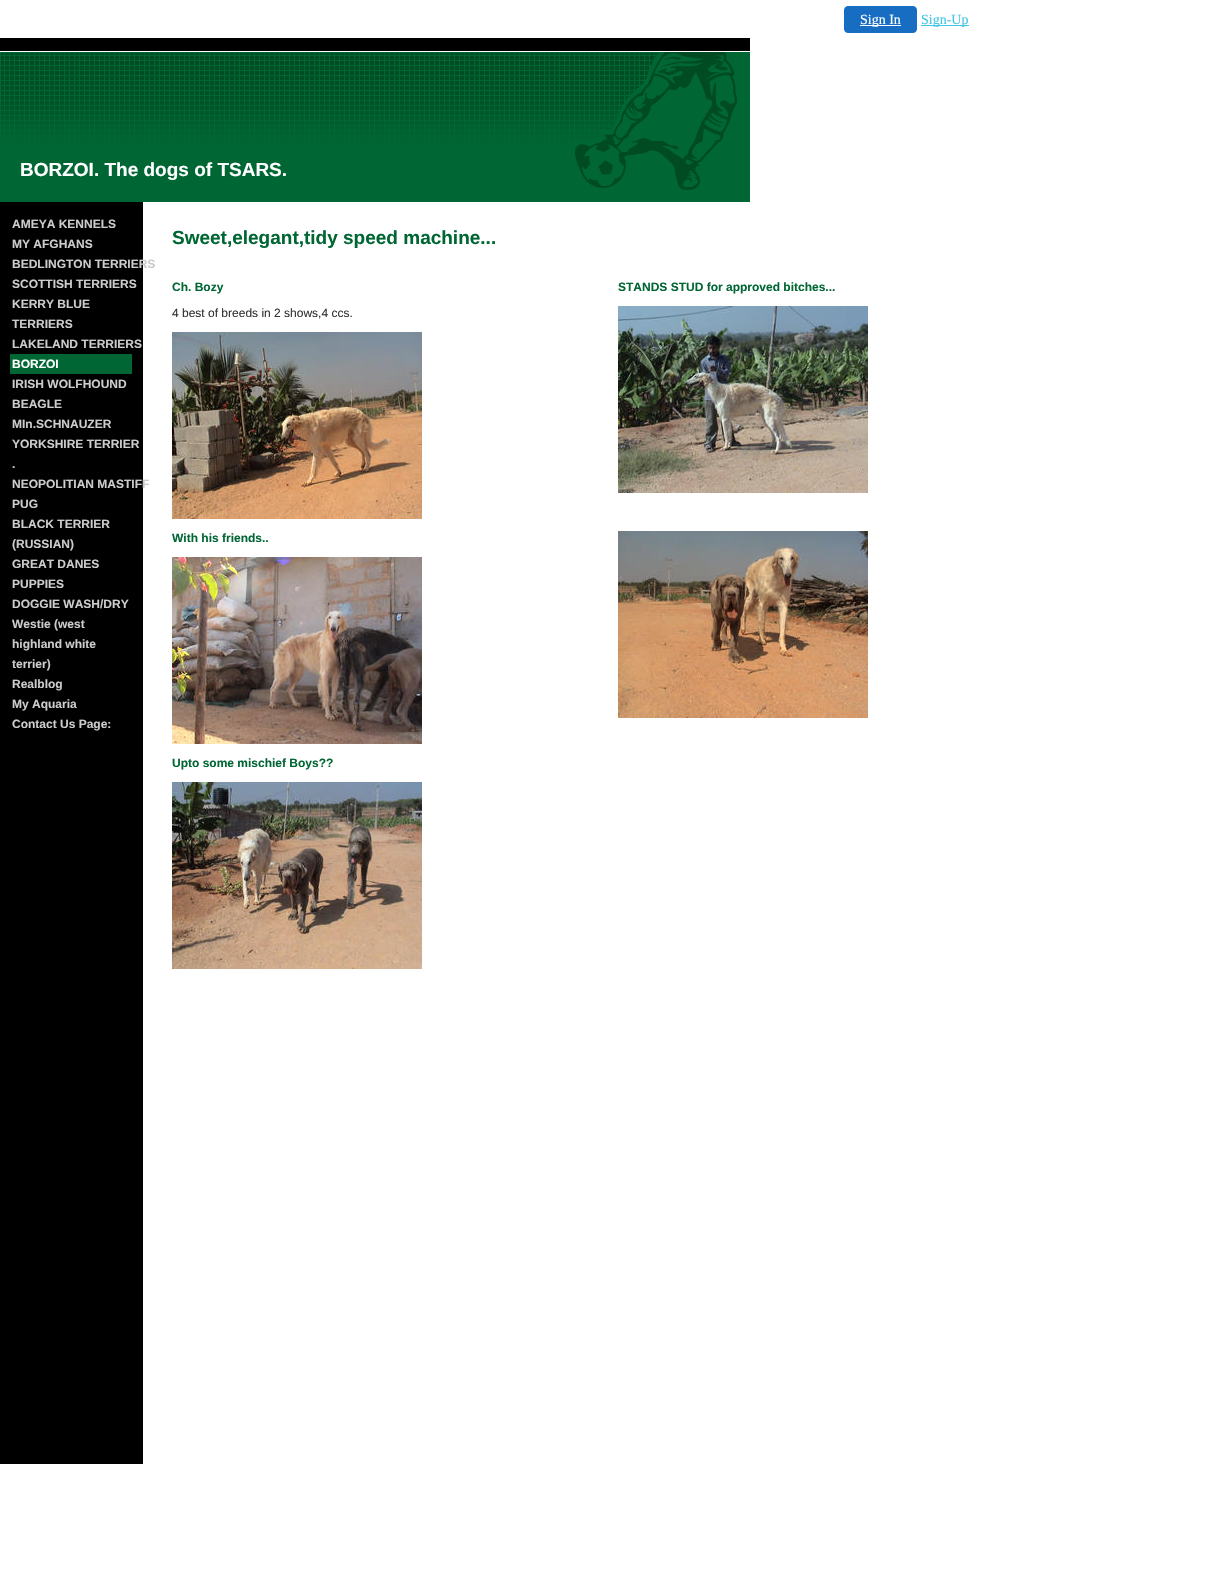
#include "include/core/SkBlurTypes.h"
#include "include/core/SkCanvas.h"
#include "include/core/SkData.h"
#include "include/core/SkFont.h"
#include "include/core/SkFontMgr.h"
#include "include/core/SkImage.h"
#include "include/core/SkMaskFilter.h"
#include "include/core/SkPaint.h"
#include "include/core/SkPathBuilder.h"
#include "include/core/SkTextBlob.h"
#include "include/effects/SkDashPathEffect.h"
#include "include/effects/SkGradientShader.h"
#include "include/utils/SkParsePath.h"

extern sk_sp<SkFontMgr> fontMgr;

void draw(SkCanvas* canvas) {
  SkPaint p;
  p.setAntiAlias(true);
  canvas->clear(SK_ColorWHITE);
  p.setColor(SkColorSetRGB(22, 109, 194));
  canvas->drawRoundRect(SkRect::MakeLTRB(844.5f, 6.5f, 916.5f, 32.5f), 3.5f, 3.5f, p);
  p.setStyle(SkPaint::kStroke_Style);
  p.setStrokeWidth(1);
  canvas->drawRoundRect(SkRect::MakeLTRB(844.5f, 6.5f, 916.5f, 32.5f), 3.5f, 3.5f, p);
  p.setStyle(SkPaint::kFill_Style);
  p.setColor(SK_ColorWHITE);
  canvas->drawRect(SkRect::MakeLTRB(860, 25, 901, 26), p);
  p.setColor(SkColorSetRGB(65, 197, 228));
  canvas->drawRect(SkRect::MakeLTRB(921, 25, 969, 26), p);
  p.setColor(SK_ColorBLACK);
  canvas->drawRect(SkRect::MakeLTRB(0, 202, 143, 1464), p);
  canvas->drawRect(SkRect::MakeLTRB(0, 38, 750, 51), p);
  canvas->drawImageRect(SkImages::DeferredFromEncodedData(SkData::MakeFromFileName("images/1.png")), SkRect::MakeLTRB(0, 51, 750, 202), SkSamplingOptions());
  p.setColor(SkColorSetRGB(0, 102, 51));
  canvas->drawRect(SkRect::MakeLTRB(10, 354, 132, 374), p);
  canvas->drawImageRect(SkImages::DeferredFromEncodedData(SkData::MakeFromFileName("images/2.png")), SkRect::MakeLTRB(172, 332, 422, 519), SkSamplingOptions());
  canvas->drawImageRect(SkImages::DeferredFromEncodedData(SkData::MakeFromFileName("images/3.png")), SkRect::MakeLTRB(618, 306, 868, 493), SkSamplingOptions());
  canvas->drawImageRect(SkImages::DeferredFromEncodedData(SkData::MakeFromFileName("images/4.png")), SkRect::MakeLTRB(172, 557, 422, 744), SkSamplingOptions());
  canvas->drawImageRect(SkImages::DeferredFromEncodedData(SkData::MakeFromFileName("images/5.png")), SkRect::MakeLTRB(618, 531, 868, 718), SkSamplingOptions());
  canvas->drawImageRect(SkImages::DeferredFromEncodedData(SkData::MakeFromFileName("images/6.png")), SkRect::MakeLTRB(172, 782, 422, 969), SkSamplingOptions());
  SkFont font1(fontMgr->matchFamilyStyle("Liberation Serif", SkFontStyle::Normal()), 14);
  font1.setSubpixel(true);
  p.setColor(SK_ColorWHITE);
  canvas->drawString("Sign In", 860, 24, font1, p);
  p.setColor(SkColorSetRGB(65, 197, 228));
  canvas->drawString("Sign-Up", 921, 24, font1, p);
  SkFont font2(fontMgr->matchFamilyStyle("Liberation Sans", SkFontStyle::Bold()), 19);
  font2.setSubpixel(true);
  p.setColor(SK_ColorWHITE);
  canvas->drawString("BORZOI. The dogs of TSARS.", 20, 176, font2, p);
  SkFont font3(fontMgr->matchFamilyStyle("Liberation Sans", SkFontStyle::Bold()), 12);
  font3.setSubpixel(true);
  p.setColor(SkColorSetRGB(204, 204, 204));
  canvas->drawString("AMEYA KENNELS", 12, 228, font3, p);
  canvas->drawString("MY AFGHANS", 12, 248, font3, p);
  canvas->drawString("BEDLINGTON TERRIERS", 12, 268, font3, p);
  canvas->drawString("SCOTTISH TERRIERS", 12, 288, font3, p);
  canvas->drawString("KERRY BLUE", 12, 308, font3, p);
  canvas->drawString("TERRIERS", 12, 328, font3, p);
  canvas->drawString("LAKELAND TERRIERS", 12, 348, font3, p);
  p.setColor(SK_ColorWHITE);
  canvas->drawString("BORZOI", 12, 368, font3, p);
  p.setColor(SkColorSetRGB(204, 204, 204));
  canvas->drawString("IRISH WOLFHOUND", 12, 388, font3, p);
  canvas->drawString("BEAGLE", 12, 408, font3, p);
  canvas->drawString("MIn.SCHNAUZER", 12, 428, font3, p);
  canvas->drawString("YORKSHIRE TERRIER", 12, 448, font3, p);
  canvas->drawString(".", 12, 468, font3, p);
  canvas->drawString("NEOPOLITIAN MASTIFF", 12, 488, font3, p);
  canvas->drawString("PUG", 12, 508, font3, p);
  canvas->drawString("BLACK TERRIER", 12, 528, font3, p);
  canvas->drawString("(RUSSIAN)", 12, 548, font3, p);
  canvas->drawString("GREAT DANES", 12, 568, font3, p);
  canvas->drawString("PUPPIES", 12, 588, font3, p);
  canvas->drawString("DOGGIE WASH/DRY", 12, 608, font3, p);
  canvas->drawString("Westie (west", 12, 628, font3, p);
  canvas->drawString("highland white", 12, 648, font3, p);
  canvas->drawString("terrier)", 12, 668, font3, p);
  canvas->drawString("Realblog", 12, 688, font3, p);
  canvas->drawString("My Aquaria", 12, 708, font3, p);
  canvas->drawString("Contact Us Page:", 12, 728, font3, p);
  p.setColor(SkColorSetRGB(0, 102, 51));
  canvas->drawString("Sweet,elegant,tidy speed machine...", 172, 244, font2, p);
  canvas->drawString("Ch. Bozy", 172, 291, font3, p);
  SkFont font4(fontMgr->matchFamilyStyle("Liberation Sans", SkFontStyle::Normal()), 12);
  font4.setSubpixel(true);
  p.setColor(SkColorSetRGB(51, 51, 51));
  canvas->drawString("4 best of breeds in 2 shows,4 ccs.", 172, 317, font4, p);
  p.setColor(SkColorSetRGB(0, 102, 51));
  canvas->drawString("STANDS STUD for approved bitches...", 618, 291, font3, p);
  canvas->drawString("With his friends..", 172, 542, font3, p);
  canvas->drawString("Upto some mischief Boys?\077", 172, 767, font3, p);
}
